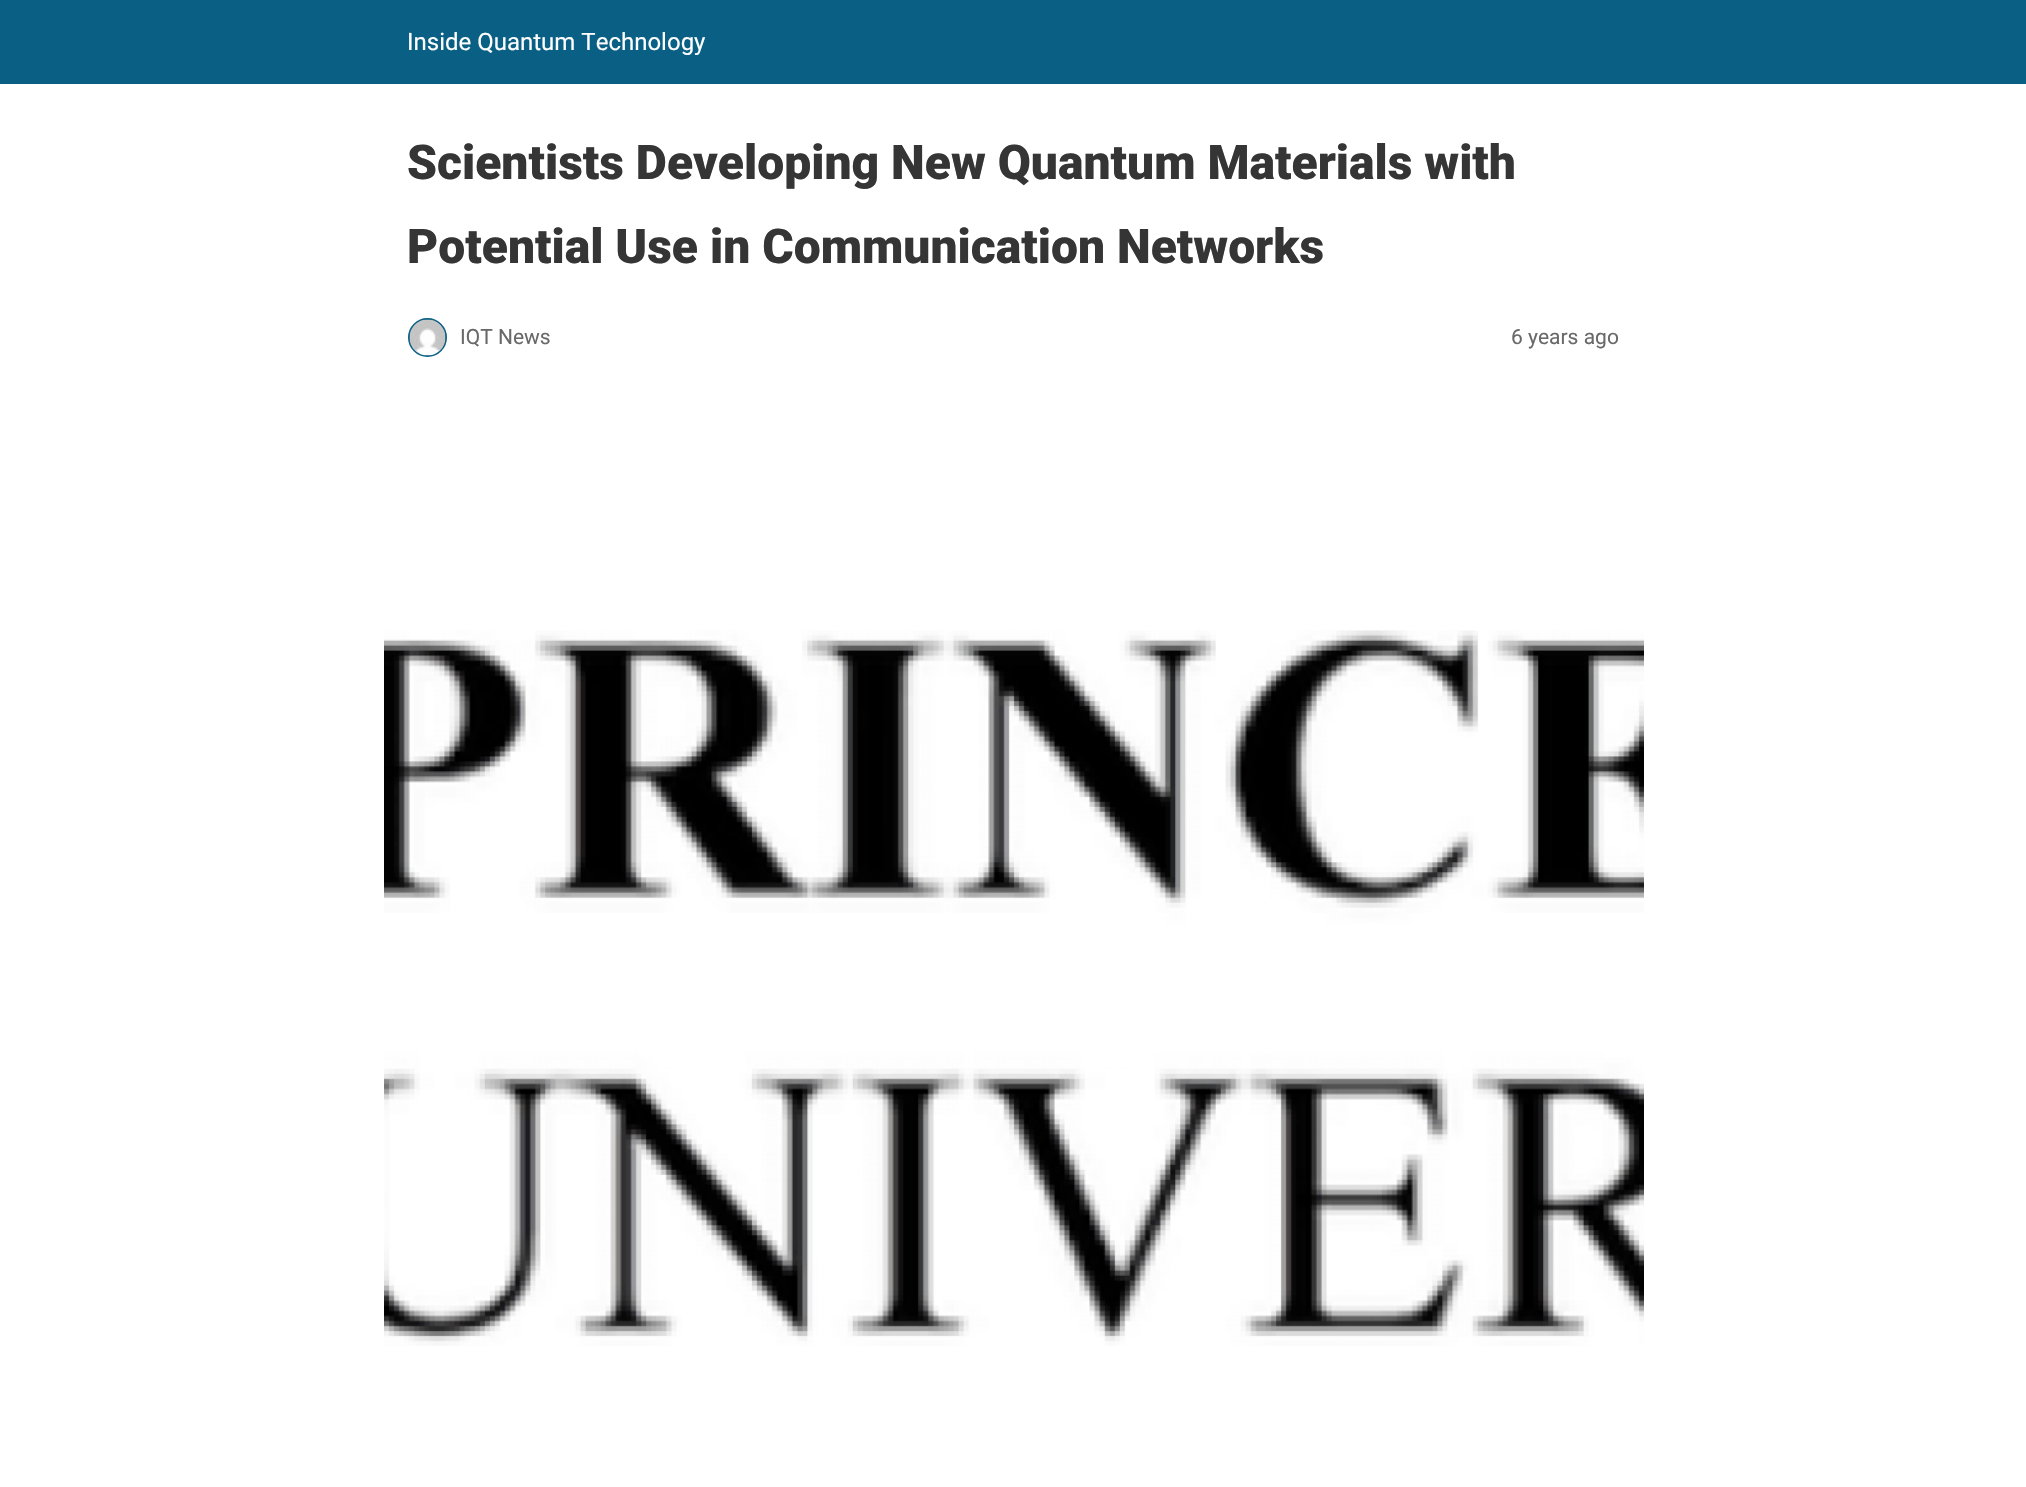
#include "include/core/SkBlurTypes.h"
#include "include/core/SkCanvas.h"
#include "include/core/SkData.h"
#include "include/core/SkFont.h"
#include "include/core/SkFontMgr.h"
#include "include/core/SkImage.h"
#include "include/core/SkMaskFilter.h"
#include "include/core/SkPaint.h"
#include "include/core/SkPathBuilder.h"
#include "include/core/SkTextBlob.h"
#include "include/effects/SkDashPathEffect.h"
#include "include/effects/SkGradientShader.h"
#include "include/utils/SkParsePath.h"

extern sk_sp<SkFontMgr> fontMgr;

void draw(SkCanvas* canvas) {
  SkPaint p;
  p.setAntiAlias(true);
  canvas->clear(SK_ColorWHITE);
  p.setColor(SkColorSetRGB(10, 95, 133));
  canvas->drawRect(SkRect::MakeLTRB(0, 0, 2026, 84), p);
  p.setStyle(SkPaint::kStroke_Style);
  p.setStrokeWidth(2);
  canvas->drawCircle(427.5f, 337.5f, 18.5f, p);
  canvas->drawImageRect(SkImages::DeferredFromEncodedData(SkData::MakeFromFileName("images/1.png")), SkRect::MakeLTRB(409, 319, 446, 356), SkSamplingOptions());
  canvas->drawImageRect(SkImages::DeferredFromEncodedData(SkData::MakeFromFileName("images/2.png")), SkRect::MakeLTRB(384, 630, 1644, 1346), SkSamplingOptions());
  SkFont font1(fontMgr->matchFamilyStyle("Roboto", SkFontStyle::Normal()), 24);
  font1.setSubpixel(true);
  p.setStyle(SkPaint::kFill_Style);
  p.setColor(SK_ColorWHITE);
  canvas->drawString("Inside Quantum Technology", 407, 50, font1, p);
  SkFont font2(fontMgr->matchFamilyStyle("Roboto", SkFontStyle(900, SkFontStyle::kNormal_Width, SkFontStyle::kUpright_Slant)), 48);
  font2.setSubpixel(true);
  p.setColor(SkColorSetRGB(53, 53, 53));
  canvas->drawString("Scientists Developing New Quantum Materials with", 407, 179, font2, p);
  canvas->drawString("Potential Use in Communication Networks", 407, 263, font2, p);
  SkFont font3(fontMgr->matchFamilyStyle("Roboto", SkFontStyle::Normal()), 21);
  font3.setSubpixel(true);
  p.setColor(SkColorSetRGB(105, 105, 105));
  canvas->drawString("IQT News", 460, 344, font3, p);
  canvas->drawString("6 years ago", 1511, 344, font3, p);
}
